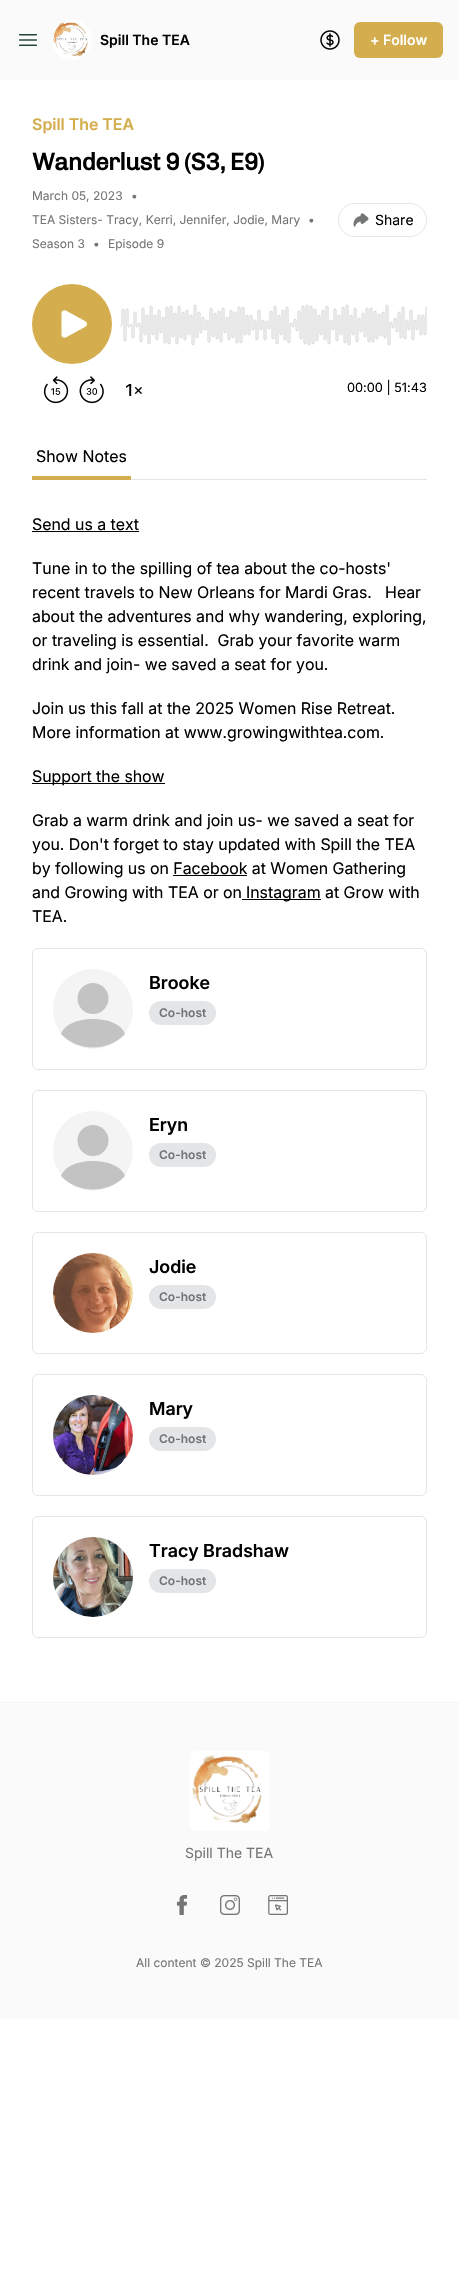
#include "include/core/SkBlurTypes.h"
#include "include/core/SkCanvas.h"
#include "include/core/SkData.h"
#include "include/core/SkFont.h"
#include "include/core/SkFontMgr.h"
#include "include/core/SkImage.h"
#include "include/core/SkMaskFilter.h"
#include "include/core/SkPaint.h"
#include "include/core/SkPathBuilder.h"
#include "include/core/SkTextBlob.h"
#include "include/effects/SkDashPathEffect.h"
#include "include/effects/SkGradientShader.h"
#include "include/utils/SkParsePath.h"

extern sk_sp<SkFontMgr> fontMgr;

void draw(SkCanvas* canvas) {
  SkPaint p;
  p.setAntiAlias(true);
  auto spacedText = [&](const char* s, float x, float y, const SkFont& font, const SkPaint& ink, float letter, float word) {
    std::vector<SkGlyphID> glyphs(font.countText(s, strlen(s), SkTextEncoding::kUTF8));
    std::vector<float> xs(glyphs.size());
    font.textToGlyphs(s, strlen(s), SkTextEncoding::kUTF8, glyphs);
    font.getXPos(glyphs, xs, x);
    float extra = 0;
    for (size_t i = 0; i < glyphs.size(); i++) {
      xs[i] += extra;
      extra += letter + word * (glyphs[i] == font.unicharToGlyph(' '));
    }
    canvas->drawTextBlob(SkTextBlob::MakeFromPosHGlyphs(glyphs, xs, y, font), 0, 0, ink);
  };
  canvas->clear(SK_ColorWHITE);
  p.setColor(SkColorSetRGB(250, 250, 250));
  canvas->drawRect(SkRect::MakeLTRB(0, 0, 459, 80), p);
  canvas->drawImageRect(SkImages::DeferredFromEncodedData(SkData::MakeFromFileName("images/1.png")), SkRect::MakeLTRB(19, 34, 37, 46), SkSamplingOptions());
  canvas->drawImageRect(SkImages::DeferredFromEncodedData(SkData::MakeFromFileName("images/2.png")), SkRect::MakeLTRB(53, 20, 92, 60), SkSamplingOptions());
  canvas->drawImageRect(SkImages::DeferredFromEncodedData(SkData::MakeFromFileName("images/3.png")), SkRect::MakeLTRB(320, 30, 340, 50), SkSamplingOptions());
  p.setColor(SkColorSetRGB(212, 174, 78));
  canvas->drawRoundRect(SkRect::MakeLTRB(354, 22, 443, 58), 6, 6, p);
  p.setStyle(SkPaint::kStroke_Style);
  p.setStrokeWidth(1);
  p.setColor(SkColorSetRGB(228, 229, 230));
  canvas->drawRoundRect(SkRect::MakeLTRB(338.5f, 203.5f, 426.5f, 236.5f), 16.5f, 16.5f, p);
  canvas->drawImageRect(SkImages::DeferredFromEncodedData(SkData::MakeFromFileName("images/4.png")), SkRect::MakeLTRB(353, 213, 369, 227), SkSamplingOptions());
  canvas->drawImageRect(SkImages::DeferredFromEncodedData(SkData::MakeFromFileName("images/5.png")), SkRect::MakeLTRB(43, 376, 69, 404), SkSamplingOptions());
  canvas->drawImageRect(SkImages::DeferredFromEncodedData(SkData::MakeFromFileName("images/6.png")), SkRect::MakeLTRB(79, 376, 104, 404), SkSamplingOptions());
  canvas->drawImageRect(SkImages::DeferredFromEncodedData(SkData::MakeFromFileName("images/7.png")), SkRect::MakeLTRB(126, 384, 142, 396), SkSamplingOptions());
  p.setStyle(SkPaint::kFill_Style);
  p.setColor(SkColorSetRGB(212, 174, 78));
  canvas->drawCircle(72, 324, 40, p);
  canvas->drawImageRect(SkImages::DeferredFromEncodedData(SkData::MakeFromFileName("images/8.png")), SkRect::MakeLTRB(61, 310, 87, 338), SkSamplingOptions());
  canvas->drawImageRect(SkImages::DeferredFromEncodedData(SkData::MakeFromFileName("images/9.png")), SkRect::MakeLTRB(120, 304, 427, 346), SkSamplingOptions());
  p.setColor(SkColorSetRGB(228, 229, 230));
  canvas->drawRect(SkRect::MakeLTRB(131, 479, 427, 480), p);
  p.setColor(SkColorSetRGB(212, 174, 78));
  canvas->drawRect(SkRect::MakeLTRB(32, 476, 131, 480), p);
  p.setColor(SK_ColorBLACK);
  canvas->drawRect(SkRect::MakeLTRB(32, 531, 139, 532), p);
  canvas->drawRect(SkRect::MakeLTRB(32, 783, 165, 784), p);
  canvas->drawRect(SkRect::MakeLTRB(173, 875, 247, 876), p);
  canvas->drawRect(SkRect::MakeLTRB(242, 899, 321, 900), p);
  p.setStyle(SkPaint::kStroke_Style);
  p.setColor(SkColorSetRGB(228, 229, 230));
  canvas->drawRoundRect(SkRect::MakeLTRB(32.5f, 948.5f, 426.5f, 1069.5f), 5.5f, 5.5f, p);
  p.setStyle(SkPaint::kFill_Style);
  p.setColor(SkColorSetRGB(244, 244, 244));
  canvas->drawCircle(93, 1009, 40, p);
  p.setColor(SkColorSetRGB(195, 195, 195));
  canvas->drawPath(SkPathBuilder(SkPathFillType::kEvenOdd).moveTo(61, 1034).cubicTo(68, 1014, 118, 1014, 125, 1034).cubicTo(108, 1052, 78, 1052, 61, 1034).close().detach(), p);
  canvas->drawCircle(93, 998.5f, 15.5f, p);
  p.setColor(SkColorSetRGB(228, 229, 230));
  canvas->drawRoundRect(SkRect::MakeLTRB(149, 1001, 216, 1025), 12, 12, p);
  p.setStyle(SkPaint::kStroke_Style);
  canvas->drawRoundRect(SkRect::MakeLTRB(32.5f, 1090.5f, 426.5f, 1211.5f), 5.5f, 5.5f, p);
  p.setStyle(SkPaint::kFill_Style);
  p.setColor(SkColorSetRGB(244, 244, 244));
  canvas->drawCircle(93, 1151, 40, p);
  p.setColor(SkColorSetRGB(195, 195, 195));
  canvas->drawPath(SkPathBuilder(SkPathFillType::kEvenOdd).moveTo(61, 1176).cubicTo(68, 1156, 118, 1156, 125, 1176).cubicTo(108, 1194, 78, 1194, 61, 1176).close().detach(), p);
  canvas->drawCircle(93, 1140.5f, 15.5f, p);
  p.setColor(SkColorSetRGB(228, 229, 230));
  canvas->drawRoundRect(SkRect::MakeLTRB(149, 1143, 216, 1167), 12, 12, p);
  p.setStyle(SkPaint::kStroke_Style);
  canvas->drawRoundRect(SkRect::MakeLTRB(32.5f, 1232.5f, 426.5f, 1353.5f), 5.5f, 5.5f, p);
  canvas->drawImageRect(SkImages::DeferredFromEncodedData(SkData::MakeFromFileName("images/10.png")), SkRect::MakeLTRB(53, 1253, 133, 1333), SkSamplingOptions());
  p.setStyle(SkPaint::kFill_Style);
  canvas->drawRoundRect(SkRect::MakeLTRB(149, 1285, 216, 1309), 12, 12, p);
  p.setStyle(SkPaint::kStroke_Style);
  canvas->drawRoundRect(SkRect::MakeLTRB(32.5f, 1374.5f, 426.5f, 1495.5f), 5.5f, 5.5f, p);
  canvas->drawImageRect(SkImages::DeferredFromEncodedData(SkData::MakeFromFileName("images/11.png")), SkRect::MakeLTRB(53, 1395, 133, 1475), SkSamplingOptions());
  p.setStyle(SkPaint::kFill_Style);
  canvas->drawRoundRect(SkRect::MakeLTRB(149, 1427, 216, 1451), 12, 12, p);
  p.setStyle(SkPaint::kStroke_Style);
  canvas->drawRoundRect(SkRect::MakeLTRB(32.5f, 1516.5f, 426.5f, 1637.5f), 5.5f, 5.5f, p);
  canvas->drawImageRect(SkImages::DeferredFromEncodedData(SkData::MakeFromFileName("images/12.png")), SkRect::MakeLTRB(53, 1537, 133, 1617), SkSamplingOptions());
  p.setStyle(SkPaint::kFill_Style);
  canvas->drawRoundRect(SkRect::MakeLTRB(149, 1569, 216, 1593), 12, 12, p);
  p.setColor(SkColorSetRGB(250, 250, 250));
  canvas->drawRect(SkRect::MakeLTRB(0, 1703, 459, 2019), p);
  p.setColor(SkColorSetRGB(244, 244, 244));
  canvas->drawRect(SkRect::MakeLTRB(0, 1702, 459, 1703), p);
  canvas->drawImageRect(SkImages::DeferredFromEncodedData(SkData::MakeFromFileName("images/13.png")), SkRect::MakeLTRB(190, 1751, 270, 1831), SkSamplingOptions());
  canvas->drawImageRect(SkImages::DeferredFromEncodedData(SkData::MakeFromFileName("images/14.png")), SkRect::MakeLTRB(176, 1895, 188, 1915), SkSamplingOptions());
  canvas->drawImageRect(SkImages::DeferredFromEncodedData(SkData::MakeFromFileName("images/15.png")), SkRect::MakeLTRB(220, 1895, 240, 1915), SkSamplingOptions());
  canvas->drawImageRect(SkImages::DeferredFromEncodedData(SkData::MakeFromFileName("images/16.png")), SkRect::MakeLTRB(268, 1895, 288, 1915), SkSamplingOptions());
  SkFont font1(fontMgr->matchFamilyStyle("Inter", SkFontStyle(600, SkFontStyle::kNormal_Width, SkFontStyle::kUpright_Slant)), 14);
  font1.setSubpixel(true);
  p.setColor(SK_ColorBLACK);
  canvas->drawString("Spill The TEA", 100, 45, font1, p);
  p.setColor(SK_ColorWHITE);
  canvas->drawString("+ Follow", 370, 45, font1, p);
  SkFont font2(fontMgr->matchFamilyStyle("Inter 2", SkFontStyle(600, SkFontStyle::kNormal_Width, SkFontStyle::kUpright_Slant)), 16);
  font2.setSubpixel(true);
  p.setColor(SkColorSetRGB(212, 174, 78));
  canvas->drawString("Spill The TEA", 32, 130, font2, p);
  SkFont font3(fontMgr->matchFamilyStyle("Chivo", SkFontStyle::Bold()), 24);
  font3.setSubpixel(true);
  p.setColor(SK_ColorBLACK);
  spacedText("Wanderlust 9 (S3, E9)", 32, 170, font3, p, -0.6f, 0);
  SkFont font4(fontMgr->matchFamilyStyle("Inter", SkFontStyle::Normal()), 12);
  font4.setSubpixel(true);
  p.setColor(SkColorSetRGB(116, 117, 118));
  canvas->drawString("March 05, 2023", 32, 200, font4, p);
  canvas->drawString("•", 131, 200, font4, p);
  canvas->drawString("TEA Sisters- Tracy, Kerri, Jennifer, Jodie, Mary", 32, 224, font4, p);
  canvas->drawString("•", 308, 224, font4, p);
  canvas->drawString("Season 3", 32, 248, font4, p);
  canvas->drawString("•", 93, 248, font4, p);
  canvas->drawString("Episode 9", 108, 248, font4, p);
  SkFont font5(fontMgr->matchFamilyStyle("Inter", SkFontStyle::Normal()), 14);
  font5.setSubpixel(true);
  p.setColor(SK_ColorBLACK);
  canvas->drawString("Share", 375, 225, font5, p);
  SkFont font6(fontMgr->matchFamilyStyle("Inter", SkFontStyle::Normal()), 12.75f);
  font6.setSubpixel(true);
  canvas->drawString("00:00 | 51:43", 347, 392, font6, p);
  SkFont font7(fontMgr->matchFamilyStyle("Inter 2", SkFontStyle::Normal()), 16);
  font7.setSubpixel(true);
  canvas->drawString("Show Notes", 36, 462, font7, p);
  canvas->drawString("Send us a text", 32, 530, font7, p);
  canvas->drawString("Tune in to the spilling of tea about the co-hosts'", 32, 574, font7, p);
  canvas->drawString("recent travels to New Orleans for Mardi Gras.   Hear", 32, 598, font7, p);
  canvas->drawString("about the adventures and why wandering, exploring,", 32, 622, font7, p);
  canvas->drawString("or traveling is essential.  Grab your favorite warm", 32, 646, font7, p);
  canvas->drawString("drink and join- we saved a seat for you.", 32, 670, font7, p);
  canvas->drawString("Join us this fall at the 2025 Women Rise Retreat.", 32, 714, font7, p);
  canvas->drawString("More information at www.growingwithtea.com.", 32, 738, font7, p);
  canvas->drawString("Support the show", 32, 782, font7, p);
  canvas->drawString("Grab a warm drink and join us- we saved a seat for", 32, 826, font7, p);
  canvas->drawString("you. Don't forget to stay updated with Spill the TEA", 32, 850, font7, p);
  canvas->drawString("by following us on Facebook at Women Gathering", 32, 874, font7, p);
  canvas->drawString("and Growing with TEA or on", 32, 898, font7, p);
  canvas->drawString("Instagram at Grow with", 246, 898, font7, p);
  canvas->drawString("TEA.", 32, 922, font7, p);
  SkFont font8(fontMgr->matchFamilyStyle("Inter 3", SkFontStyle(600, SkFontStyle::kNormal_Width, SkFontStyle::kUpright_Slant)), 18);
  font8.setSubpixel(true);
  canvas->drawString("Brooke", 149, 989, font8, p);
  SkFont font9(fontMgr->matchFamilyStyle("Inter", SkFontStyle(600, SkFontStyle::kNormal_Width, SkFontStyle::kUpright_Slant)), 12);
  font9.setSubpixel(true);
  p.setColor(SkColorSetRGB(116, 117, 118));
  canvas->drawString("Co-host", 159, 1017, font9, p);
  p.setColor(SK_ColorBLACK);
  canvas->drawString("Eryn", 149, 1131, font8, p);
  p.setColor(SkColorSetRGB(116, 117, 118));
  canvas->drawString("Co-host", 159, 1159, font9, p);
  p.setColor(SK_ColorBLACK);
  canvas->drawString("Jodie", 149, 1273, font8, p);
  p.setColor(SkColorSetRGB(116, 117, 118));
  canvas->drawString("Co-host", 159, 1301, font9, p);
  p.setColor(SK_ColorBLACK);
  canvas->drawString("Mary", 149, 1415, font8, p);
  p.setColor(SkColorSetRGB(116, 117, 118));
  canvas->drawString("Co-host", 159, 1443, font9, p);
  p.setColor(SK_ColorBLACK);
  canvas->drawString("Tracy Bradshaw", 149, 1557, font8, p);
  p.setColor(SkColorSetRGB(116, 117, 118));
  canvas->drawString("Co-host", 159, 1585, font9, p);
  canvas->drawString("Spill The TEA", 185, 1858, font5, p);
  canvas->drawString("All content © 2025 Spill The TEA", 136, 1967, font4, p);
}
